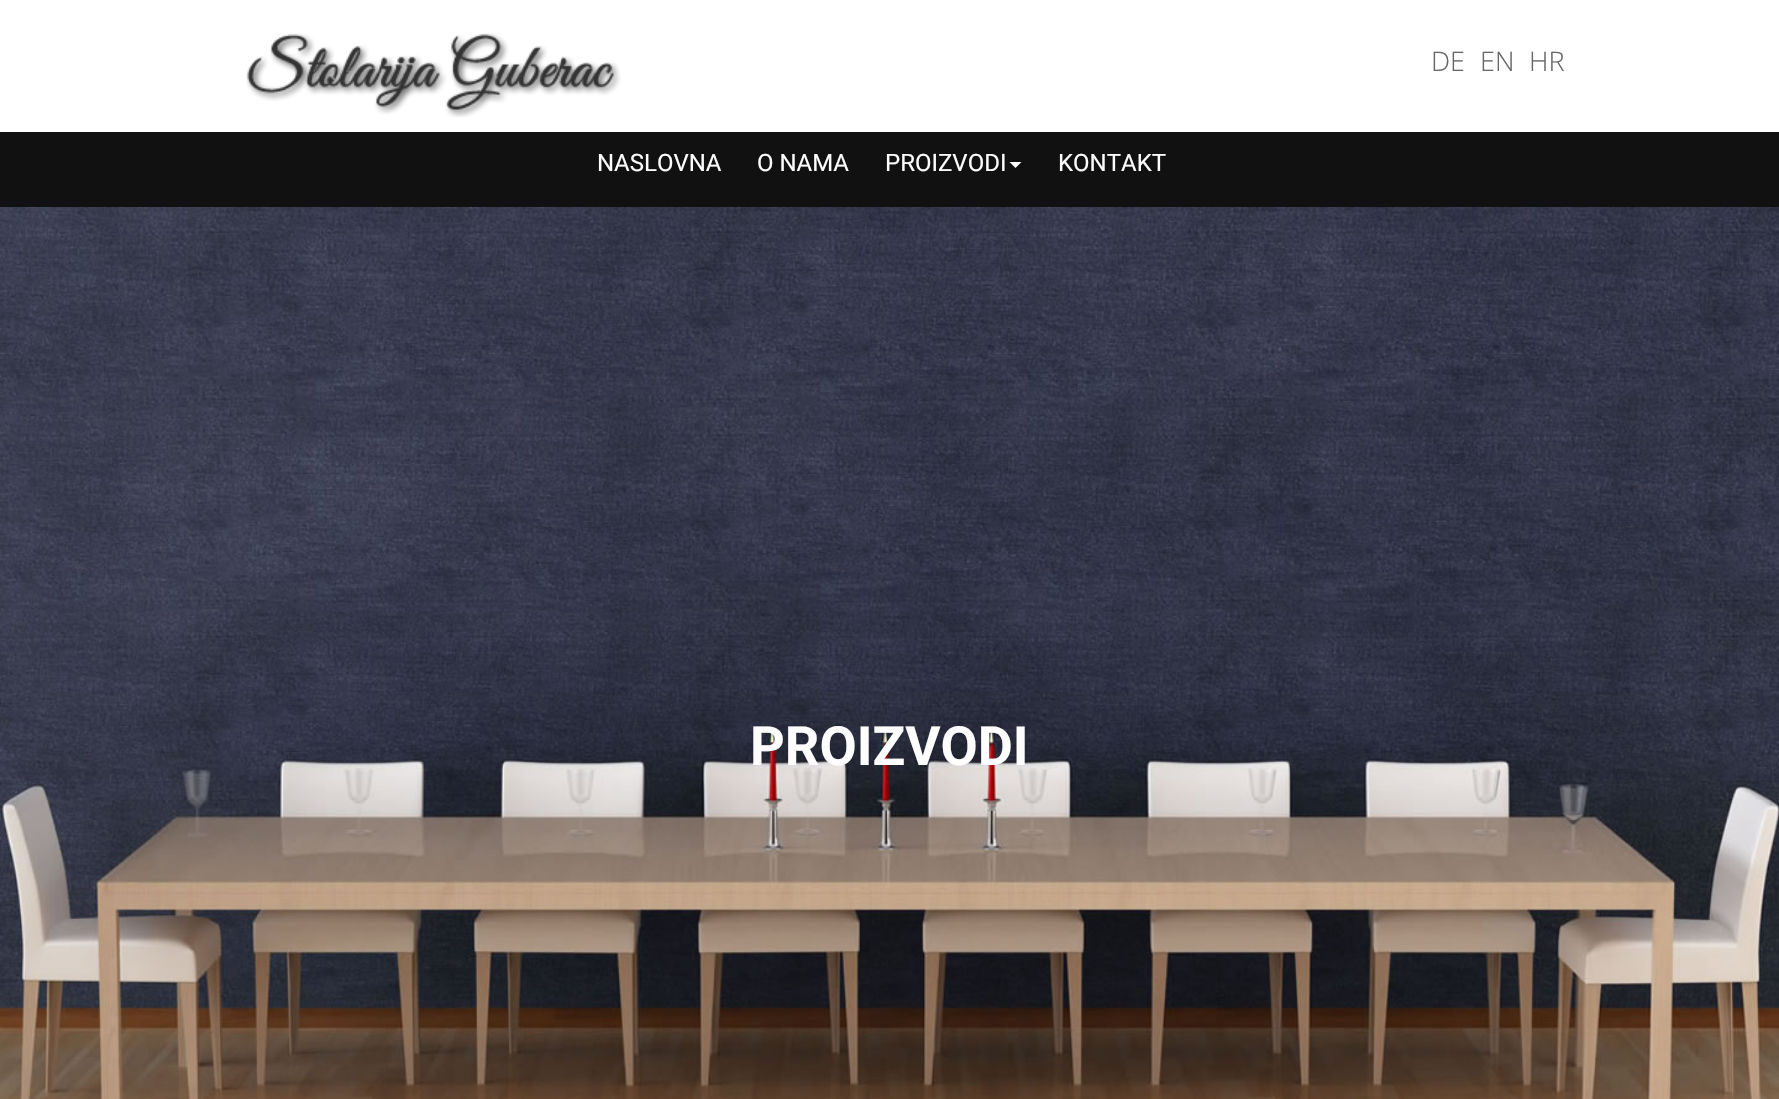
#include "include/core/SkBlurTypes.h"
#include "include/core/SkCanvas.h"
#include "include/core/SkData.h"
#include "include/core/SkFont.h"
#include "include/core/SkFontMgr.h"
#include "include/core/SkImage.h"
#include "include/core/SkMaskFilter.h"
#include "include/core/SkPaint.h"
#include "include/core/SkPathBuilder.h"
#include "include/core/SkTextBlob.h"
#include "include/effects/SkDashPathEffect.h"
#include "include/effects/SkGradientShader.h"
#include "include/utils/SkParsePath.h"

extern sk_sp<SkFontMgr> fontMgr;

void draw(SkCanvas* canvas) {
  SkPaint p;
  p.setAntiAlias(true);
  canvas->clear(SK_ColorWHITE);
  canvas->drawImageRect(SkImages::DeferredFromEncodedData(SkData::MakeFromFileName("images/1.png")), SkRect::MakeLTRB(246, 33, 621, 117), SkSamplingOptions());
  p.setColor(SkColorSetRGB(17, 17, 17));
  canvas->drawRect(SkRect::MakeLTRB(0, 132, 1779, 207), p);
  p.setColor(SkColorSetRGB(253, 253, 253));
  canvas->drawPath(SkPathBuilder().moveTo(1009.5f, 162).lineTo(1021.5f, 162).lineTo(1015.5f, 168).close().detach(), p);
  canvas->drawImageRect(SkImages::DeferredFromEncodedData(SkData::MakeFromFileName("images/2.png")), SkRect::MakeLTRB(0, 207, 1779, 1099), SkSamplingOptions());
  SkFont font1(fontMgr->matchFamilyStyle("Open Sans", SkFontStyle(300, SkFontStyle::kNormal_Width, SkFontStyle::kUpright_Slant)), 27);
  font1.setSubpixel(true);
  p.setColor(SkColorSetRGB(102, 102, 102));
  canvas->drawString("DE", 1431, 71, font1, p);
  canvas->drawString("EN", 1480, 71, font1, p);
  canvas->drawString("HR", 1529, 71, font1, p);
  SkFont font2(fontMgr->matchFamilyStyle("Roboto", SkFontStyle::Normal()), 24);
  font2.setSubpixel(true);
  p.setColor(SkColorSetRGB(253, 253, 253));
  canvas->drawString("NASLOVNA", 597, 171, font2, p);
  canvas->drawString("O NAMA", 757, 171, font2, p);
  canvas->drawString("PROIZVODI", 885, 171, font2, p);
  canvas->drawString("KONTAKT", 1058, 171, font2, p);
  SkFont font3(fontMgr->matchFamilyStyle("Roboto", SkFontStyle::Bold()), 54);
  font3.setSubpixel(true);
  canvas->drawString("PROIZVODI", 750, 765, font3, p);
}
